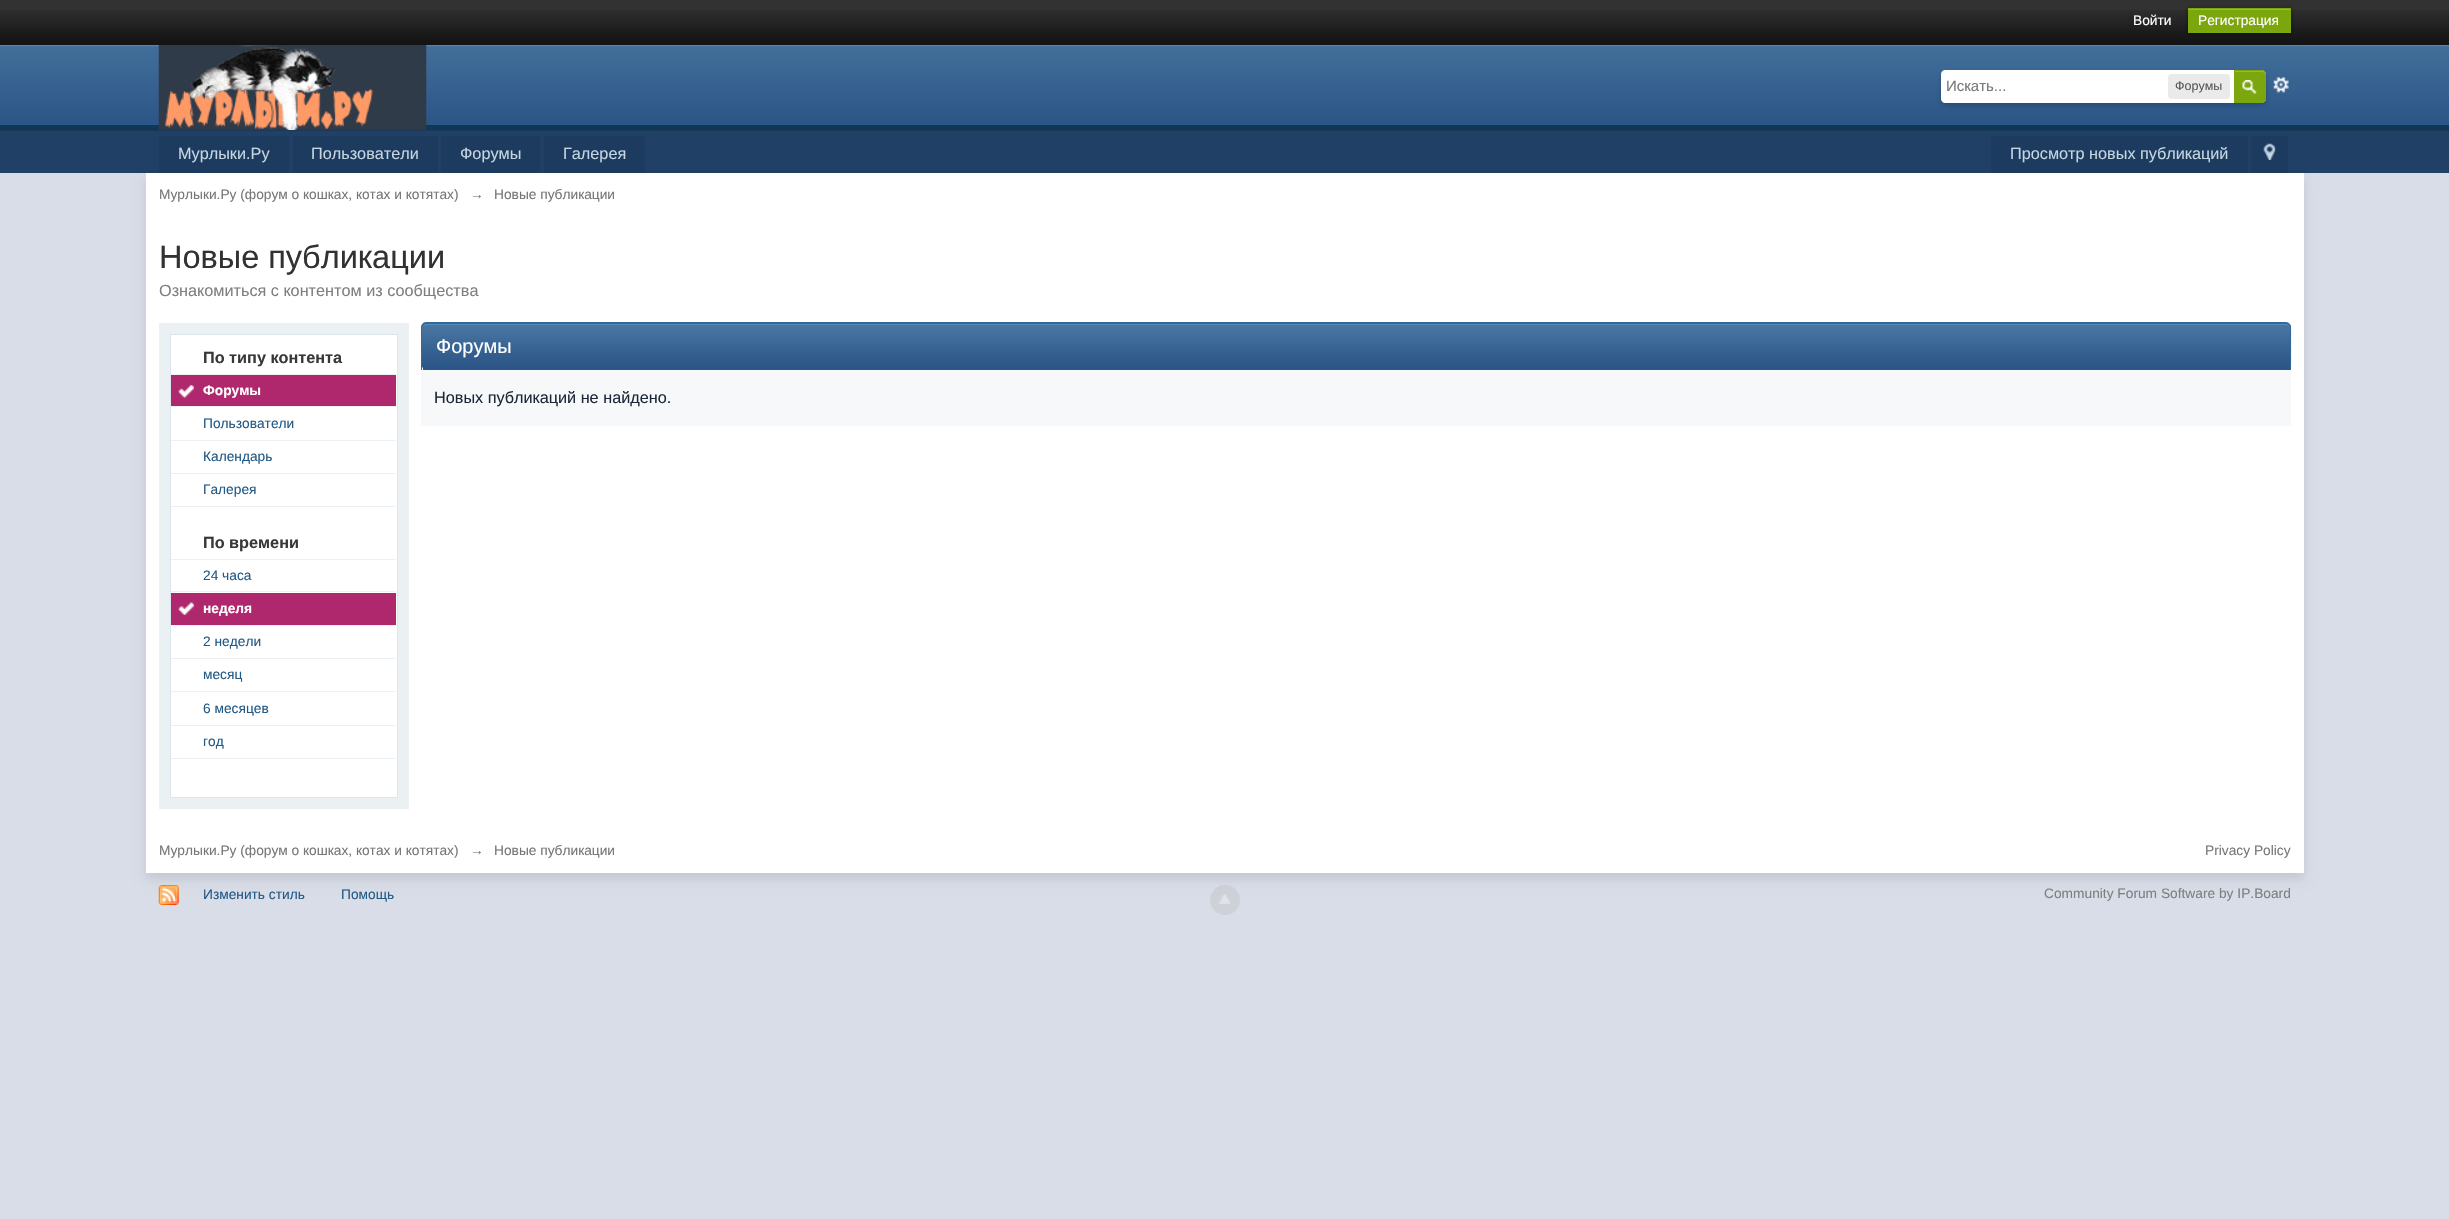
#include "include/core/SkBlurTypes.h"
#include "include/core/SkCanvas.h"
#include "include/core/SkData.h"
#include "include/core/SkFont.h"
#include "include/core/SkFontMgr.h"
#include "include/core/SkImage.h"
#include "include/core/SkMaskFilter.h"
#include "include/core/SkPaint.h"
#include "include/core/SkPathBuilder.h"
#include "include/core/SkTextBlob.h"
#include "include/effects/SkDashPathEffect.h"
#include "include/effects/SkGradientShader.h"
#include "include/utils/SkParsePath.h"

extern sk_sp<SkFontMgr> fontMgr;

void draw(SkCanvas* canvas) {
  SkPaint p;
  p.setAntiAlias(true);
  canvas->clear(SkColorSetRGB(216, 221, 232));
  p.setColor(SkColorSetRGB(50, 50, 50));
  canvas->drawRect(SkRect::MakeLTRB(0, 0, 2449, 10), p);
  canvas->drawImageRect(SkImages::DeferredFromEncodedData(SkData::MakeFromFileName("images/1.png")), SkRect::MakeLTRB(0, 10, 2449, 45), SkSamplingOptions());
  p.setColor(SkColorSetARGB(102, 0, 0, 0));
  p.setMaskFilter(SkMaskFilter::MakeBlur(kNormal_SkBlurStyle, 2.5f));
  canvas->drawRect(SkRect::MakeLTRB(2188, 9, 2291, 34), p);
  p.setMaskFilter(nullptr);
  p.setColor(SkColorSetRGB(123, 166, 13));
  canvas->drawRect(SkRect::MakeLTRB(2188, 8, 2291, 33), p);
  p.setColor(SkColorSetRGB(149, 184, 61));
  canvas->drawRect(SkRect::MakeLTRB(2189, 9, 2290, 10), p);
  p.setColor(SkColorSetRGB(15, 56, 84));
  canvas->drawRect(SkRect::MakeLTRB(0, 125, 2449, 130), p);
  canvas->drawImageRect(SkImages::DeferredFromEncodedData(SkData::MakeFromFileName("images/2.png")), SkRect::MakeLTRB(0, 45, 2449, 125), SkSamplingOptions());
  p.setColor(SkColorSetRGB(27, 55, 89));
  canvas->drawRect(SkRect::MakeLTRB(0, 130, 2449, 131), p);
  canvas->drawImageRect(SkImages::DeferredFromEncodedData(SkData::MakeFromFileName("images/3.png")), SkRect::MakeLTRB(158, 45, 427, 130), SkSamplingOptions());
  canvas->drawImageRect(SkImages::DeferredFromEncodedData(SkData::MakeFromFileName("images/5.png")), SkRect::MakeLTRB(2273, 77, 2289, 93), SkSamplingOptions());
  p.setColor(SkColorSetARGB(51, 0, 0, 0));
  p.setMaskFilter(SkMaskFilter::MakeBlur(kNormal_SkBlurStyle, 2.5f));
  canvas->drawRoundRect(SkRect::MakeLTRB(1941, 73, 2266, 105), 5, 5, p);
  p.setMaskFilter(nullptr);
  p.setColor(SK_ColorWHITE);
  canvas->drawPath(SkPathBuilder().moveTo(1945, 70).lineTo(2261, 70).cubicTo(2264, 70, 2266, 72, 2266, 75).lineTo(2266, 98).cubicTo(2266, 101, 2264, 103, 2261, 103).lineTo(1945, 103).cubicTo(1943, 103, 1941, 101, 1941, 99).lineTo(1941, 74).cubicTo(1941, 72, 1943, 70, 1945, 70).close().detach(), p);
  p.setColor(SkColorSetRGB(234, 234, 234));
  canvas->drawRoundRect(SkRect::MakeLTRB(2168, 74, 2230, 99), 4, 4, p);
  p.setColor(SkColorSetRGB(123, 166, 13));
  canvas->drawPath(SkPathBuilder().moveTo(2234, 70).lineTo(2262, 70).cubicTo(2264, 70, 2266, 72, 2266, 74).lineTo(2266, 99).cubicTo(2266, 101, 2264, 103, 2262, 103).lineTo(2234, 103).close().detach(), p);
  canvas->drawImageRect(SkImages::DeferredFromEncodedData(SkData::MakeFromFileName("images/4.png")), SkRect::MakeLTRB(2242, 80, 2257, 94), SkSamplingOptions());
  p.setColor(SkColorSetRGB(149, 184, 61));
  canvas->drawPath(SkPathBuilder().moveTo(2235, 72).lineTo(2262, 72).cubicTo(2264, 72, 2265, 74, 2265, 75).lineTo(2265, 73.5f).cubicTo(2265, 72, 2264, 71, 2262.5f, 71).lineTo(2235, 71).close().detach(), p);
  p.setStyle(SkPaint::kStroke_Style);
  p.setStrokeWidth(1);
  p.setColor(SkColorSetRGB(123, 166, 13));
  canvas->drawPath(SkPathBuilder().moveTo(2234.5f, 70.5f).lineTo(2262, 70.5f).cubicTo(2264, 70.5f, 2265.5f, 72, 2265.5f, 74).lineTo(2265.5f, 99).cubicTo(2265.5f, 101, 2264, 102.5f, 2262, 102.5f).lineTo(2234.5f, 102.5f).close().detach(), p);
  p.setStyle(SkPaint::kFill_Style);
  p.setColor(SkColorSetRGB(32, 64, 102));
  canvas->drawRect(SkRect::MakeLTRB(0, 131, 2449, 173), p);
  p.setColor(SkColorSetARGB(26, 0, 0, 0));
  p.setMaskFilter(SkMaskFilter::MakeBlur(kNormal_SkBlurStyle, 5.5f));
  canvas->drawRect(SkRect::MakeLTRB(146, 179, 2304, 879), p);
  p.setMaskFilter(nullptr);
  p.setColor(SkColorSetRGB(28, 59, 95));
  canvas->drawRect(SkRect::MakeLTRB(159, 136, 289, 173), p);
  canvas->drawRect(SkRect::MakeLTRB(293, 136, 438, 173), p);
  canvas->drawRect(SkRect::MakeLTRB(441, 136, 540, 173), p);
  canvas->drawRect(SkRect::MakeLTRB(544, 136, 645, 173), p);
  canvas->drawRect(SkRect::MakeLTRB(1991, 136, 2248, 173), p);
  canvas->drawRect(SkRect::MakeLTRB(2251, 136, 2288, 173), p);
  canvas->drawImageRect(SkImages::DeferredFromEncodedData(SkData::MakeFromFileName("images/6.png")), SkRect::MakeLTRB(2263, 143, 2276, 160), SkSamplingOptions());
  p.setColor(SK_ColorWHITE);
  canvas->drawRect(SkRect::MakeLTRB(146, 173, 2304, 873), p);
  p.setColor(SkColorSetRGB(235, 240, 243));
  canvas->drawRect(SkRect::MakeLTRB(159, 323, 409, 809), p);
  p.setColor(SK_ColorWHITE);
  canvas->drawRect(SkRect::MakeLTRB(170.5f, 334.5f, 397.5f, 797.5f), p);
  p.setStyle(SkPaint::kStroke_Style);
  p.setColor(SkColorSetRGB(219, 228, 239));
  canvas->drawRect(SkRect::MakeLTRB(170.5f, 334.5f, 397.5f, 797.5f), p);
  p.setStyle(SkPaint::kFill_Style);
  p.setColor(SkColorSetRGB(237, 241, 245));
  canvas->drawRect(SkRect::MakeLTRB(171, 374, 396, 375), p);
  canvas->drawRect(SkRect::MakeLTRB(171, 406, 396, 407), p);
  p.setColor(SkColorSetRGB(175, 40, 109));
  canvas->drawRect(SkRect::MakeLTRB(171, 375, 396, 406), p);
  canvas->drawImageRect(SkImages::DeferredFromEncodedData(SkData::MakeFromFileName("images/7.png")), SkRect::MakeLTRB(178, 385, 194, 398), SkSamplingOptions());
  p.setColor(SkColorSetRGB(237, 241, 245));
  canvas->drawRect(SkRect::MakeLTRB(171, 440, 396, 441), p);
  canvas->drawRect(SkRect::MakeLTRB(171, 473, 396, 474), p);
  canvas->drawRect(SkRect::MakeLTRB(171, 506, 396, 507), p);
  canvas->drawRect(SkRect::MakeLTRB(171, 559, 396, 560), p);
  canvas->drawRect(SkRect::MakeLTRB(171, 591, 396, 592), p);
  canvas->drawRect(SkRect::MakeLTRB(171, 625, 396, 626), p);
  p.setColor(SkColorSetRGB(175, 40, 109));
  canvas->drawRect(SkRect::MakeLTRB(171, 593, 396, 625), p);
  canvas->drawImageRect(SkImages::DeferredFromEncodedData(SkData::MakeFromFileName("images/8.png")), SkRect::MakeLTRB(178, 602, 194, 615), SkSamplingOptions());
  p.setColor(SkColorSetRGB(237, 241, 245));
  canvas->drawRect(SkRect::MakeLTRB(171, 658, 396, 659), p);
  canvas->drawRect(SkRect::MakeLTRB(171, 691, 396, 692), p);
  canvas->drawRect(SkRect::MakeLTRB(171, 725, 396, 726), p);
  canvas->drawRect(SkRect::MakeLTRB(171, 758, 396, 759), p);
  p.setColor(SkColorSetRGB(44, 86, 135));
  canvas->drawPath(SkPathBuilder().moveTo(427, 324).lineTo(2286, 324).cubicTo(2288, 324, 2290, 326, 2290, 328).lineTo(2290, 370).lineTo(423, 370).lineTo(423, 328).cubicTo(423, 326, 425, 324, 427, 324).close().detach(), p);
  canvas->drawImageRect(SkImages::DeferredFromEncodedData(SkData::MakeFromFileName("images/9.png")), SkRect::MakeLTRB(421, 323, 2292, 368), SkSamplingOptions());
  p.setColor(SkColorSetRGB(82, 140, 188));
  canvas->drawPath(SkPathBuilder().moveTo(426, 325).lineTo(2286, 325).cubicTo(2288, 325, 2290, 327, 2290, 329).lineTo(2290, 328).cubicTo(2290, 326, 2288, 324, 2286, 324).lineTo(427, 324).cubicTo(426, 324, 424, 325, 424, 326).close().detach(), p);
  p.setColor(SkColorSetRGB(49, 104, 151));
  canvas->drawPath(SkPathBuilder(SkPathFillType::kEvenOdd).moveTo(426, 322).lineTo(2286, 322).cubicTo(2289, 322, 2291, 325, 2291, 328).lineTo(2291, 370).lineTo(421, 370).lineTo(421, 328).cubicTo(421, 325, 423, 322, 426, 322).close().moveTo(426, 324).lineTo(2286, 324).cubicTo(2288, 324, 2290, 325, 2290, 328).lineTo(2290, 370).lineTo(422, 370).lineTo(422, 328).cubicTo(422, 325, 424, 324, 426, 324).close().detach(), p);
  p.setColor(SkColorSetRGB(246, 248, 250));
  canvas->drawRect(SkRect::MakeLTRB(421, 370, 2291, 426), p);
  canvas->drawImageRect(SkImages::DeferredFromEncodedData(SkData::MakeFromFileName("images/10.png")), SkRect::MakeLTRB(158, 885, 179, 905), SkSamplingOptions());
  p.setColor(SkColorSetARGB(102, 189, 189, 189));
  canvas->drawCircle(1225, 900, 15, p);
  canvas->drawImageRect(SkImages::DeferredFromEncodedData(SkData::MakeFromFileName("images/11.png")), SkRect::MakeLTRB(1219, 894, 1231, 904), SkSamplingOptions());
  SkFont font1(fontMgr->matchFamilyStyle("Liberation Sans", SkFontStyle::Normal()), 13.75f);
  font1.setSubpixel(true);
  p.setColor(SK_ColorWHITE);
  canvas->drawString("Войти", 2133, 25, font1, p);
  canvas->drawString("Регистрация", 2198, 25, font1, p);
  SkFont font2(fontMgr->matchFamilyStyle("Liberation Sans", SkFontStyle::Normal()), 15);
  font2.setSubpixel(true);
  p.setColor(SkColorSetRGB(119, 119, 119));
  canvas->drawString("Искать...", 1946, 91, font2, p);
  SkFont font3(fontMgr->matchFamilyStyle("Liberation Sans", SkFontStyle::Normal()), 12.5f);
  font3.setSubpixel(true);
  p.setColor(SkColorSetRGB(90, 90, 90));
  canvas->drawString("Форумы", 2175, 90, font3, p);
  SkFont font4(fontMgr->matchFamilyStyle("Liberation Sans", SkFontStyle::Normal()), 16.25f);
  font4.setSubpixel(true);
  p.setColor(SkColorSetRGB(197, 213, 226));
  canvas->drawString("Мурлыки.Ру", 178, 159, font4, p);
  canvas->drawString("Пользователи", 311, 159, font4, p);
  canvas->drawString("Форумы", 460, 159, font4, p);
  canvas->drawString("Галерея", 563, 159, font4, p);
  canvas->drawString("Просмотр новых публикаций", 2010, 159, font4, p);
  p.setColor(SkColorSetRGB(119, 119, 119));
  canvas->drawString("Мурлыки.Ру (форум о кошках, котах и котятах)", 159, 199, font1, p);
  canvas->drawString("→", 470, 199, font1, p);
  canvas->drawString("Новые публикации", 494, 199, font1, p);
  SkFont font5(fontMgr->matchFamilyStyle("Liberation Sans", SkFontStyle::Normal()), 32.5f);
  font5.setSubpixel(true);
  p.setColor(SkColorSetRGB(50, 50, 50));
  canvas->drawString("Новые публикации", 159, 268, font5, p);
  p.setColor(SkColorSetRGB(127, 127, 127));
  canvas->drawString("Ознакомиться с контентом из сообщества", 159, 296, font4, p);
  SkFont font6(fontMgr->matchFamilyStyle("Liberation Sans", SkFontStyle::Bold()), 16.25f);
  font6.setSubpixel(true);
  p.setColor(SkColorSetRGB(56, 56, 56));
  canvas->drawString("По типу контента", 203, 363, font6, p);
  SkFont font7(fontMgr->matchFamilyStyle("Liberation Sans", SkFontStyle::Bold()), 13.75f);
  font7.setSubpixel(true);
  p.setColor(SK_ColorWHITE);
  canvas->drawString("Форумы", 203, 395, font7, p);
  p.setColor(SkColorSetRGB(34, 89, 133));
  canvas->drawString("Пользователи", 203, 428, font1, p);
  canvas->drawString("Календарь", 203, 461, font1, p);
  canvas->drawString("Галерея", 203, 494, font1, p);
  p.setColor(SkColorSetRGB(56, 56, 56));
  canvas->drawString("По времени", 203, 548, font6, p);
  p.setColor(SkColorSetRGB(34, 89, 133));
  canvas->drawString("24 часа", 203, 580, font1, p);
  p.setColor(SK_ColorWHITE);
  canvas->drawString("неделя", 203, 613, font7, p);
  p.setColor(SkColorSetRGB(34, 89, 133));
  canvas->drawString("2 недели", 203, 646, font1, p);
  canvas->drawString("месяц", 203, 679, font1, p);
  canvas->drawString("6 месяцев", 203, 713, font1, p);
  canvas->drawString("год", 203, 746, font1, p);
  SkFont font8(fontMgr->matchFamilyStyle("Liberation Sans", SkFontStyle::Normal()), 20);
  font8.setSubpixel(true);
  p.setColor(SK_ColorWHITE);
  canvas->drawString("Форумы", 436, 353, font8, p);
  p.setColor(SkColorSetRGB(28, 40, 55));
  canvas->drawString("Новых публикаций не найдено.", 434, 403, font4, p);
  p.setColor(SkColorSetRGB(119, 119, 119));
  canvas->drawString("Мурлыки.Ру (форум о кошках, котах и котятах)", 159, 855, font1, p);
  canvas->drawString("→", 470, 855, font1, p);
  canvas->drawString("Новые публикации", 494, 855, font1, p);
  canvas->drawString("Privacy Policy", 2205, 855, font1, p);
  p.setColor(SkColorSetRGB(34, 89, 133));
  canvas->drawString("Изменить стиль", 203, 899, font1, p);
  canvas->drawString("Помощь", 341, 899, font1, p);
  p.setColor(SkColorSetRGB(127, 127, 127));
  canvas->drawString("Community Forum Software by IP.Board", 2044, 898, font1, p);
}
